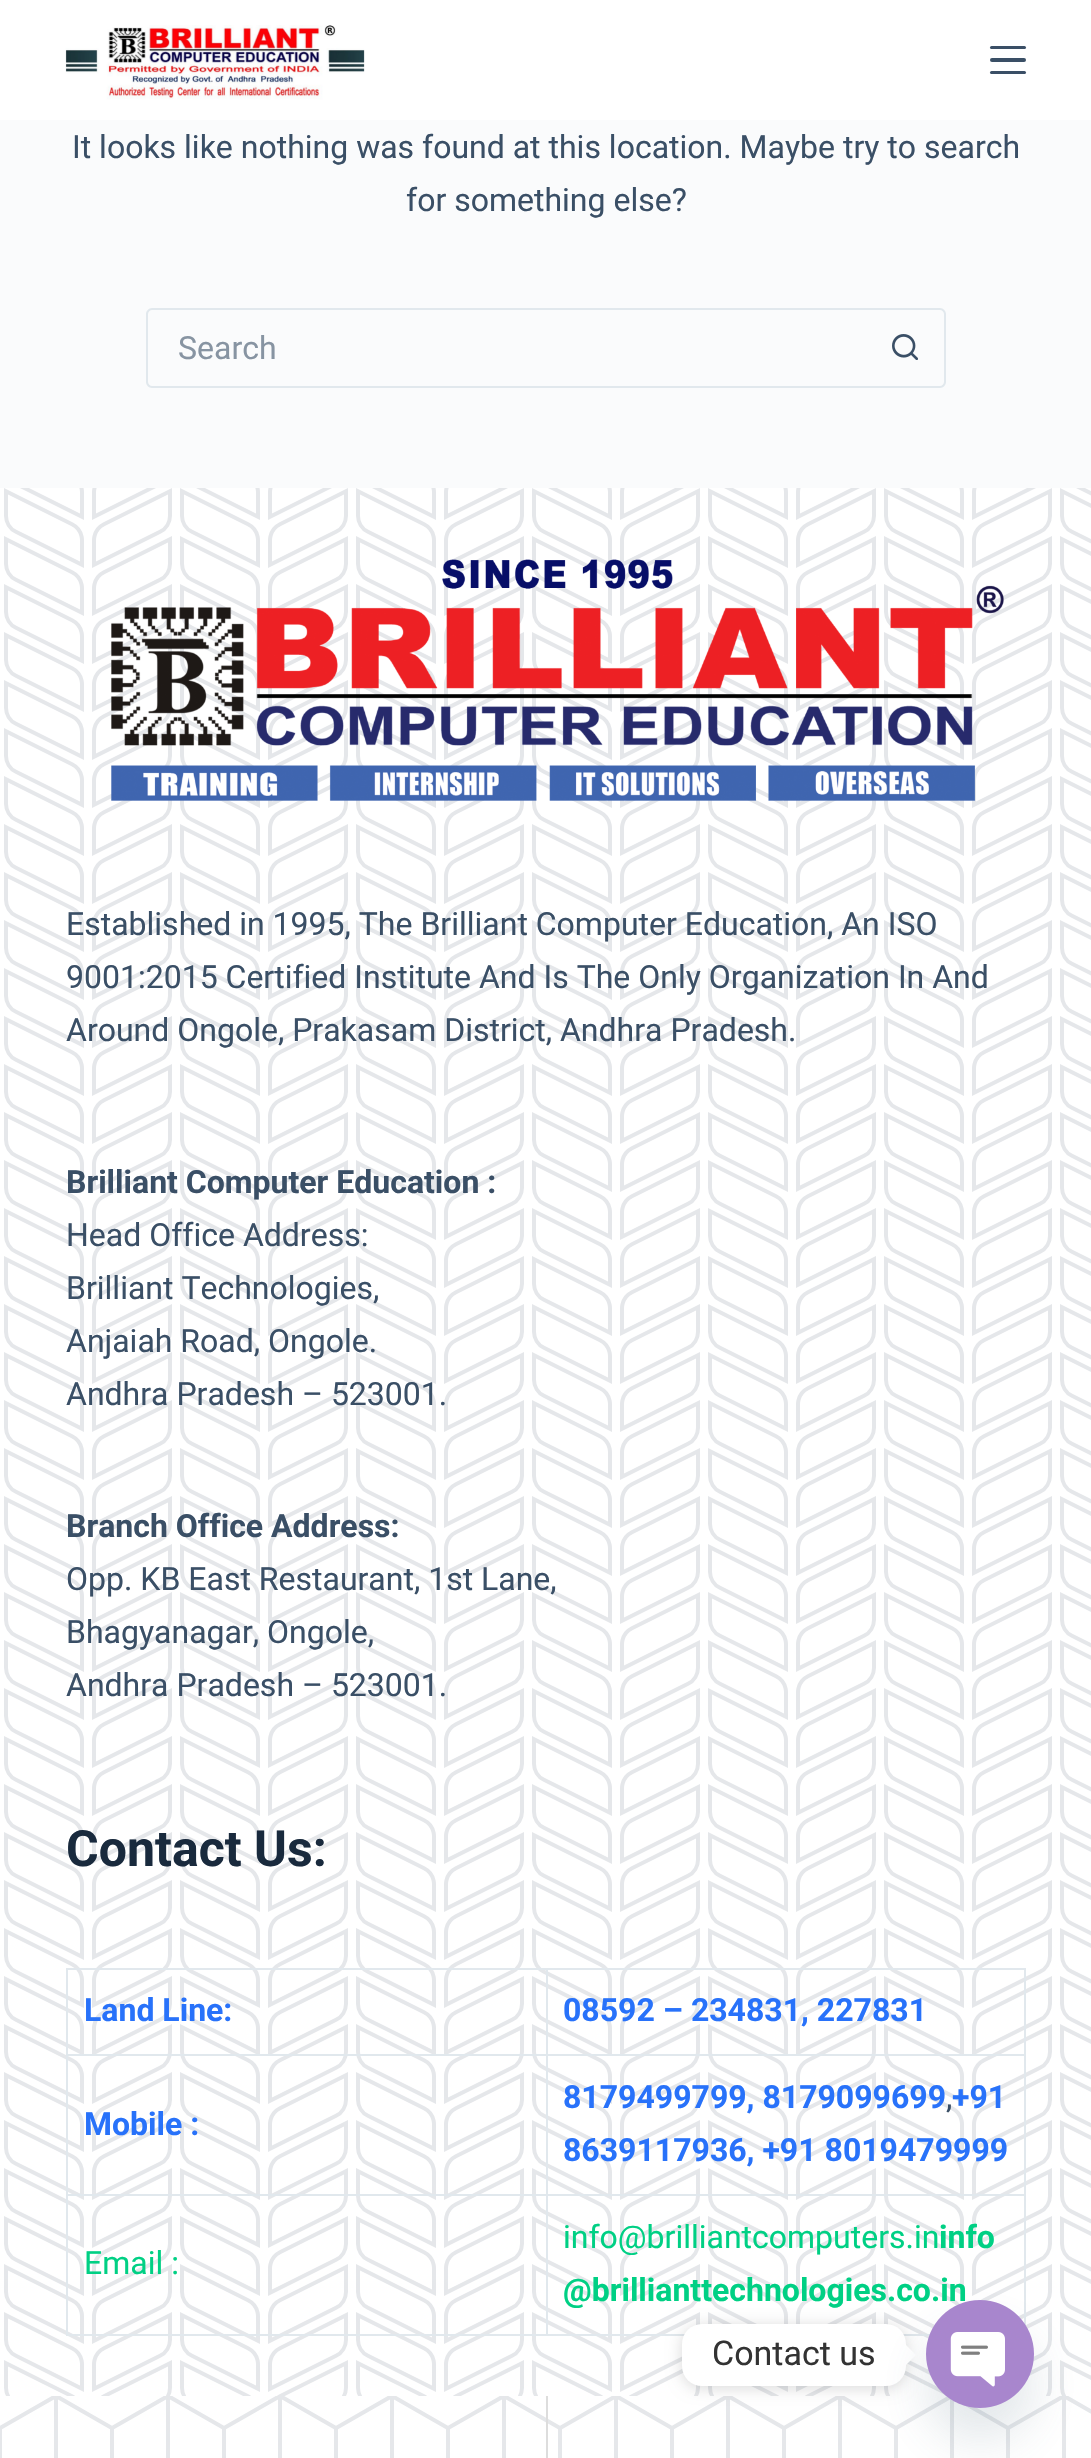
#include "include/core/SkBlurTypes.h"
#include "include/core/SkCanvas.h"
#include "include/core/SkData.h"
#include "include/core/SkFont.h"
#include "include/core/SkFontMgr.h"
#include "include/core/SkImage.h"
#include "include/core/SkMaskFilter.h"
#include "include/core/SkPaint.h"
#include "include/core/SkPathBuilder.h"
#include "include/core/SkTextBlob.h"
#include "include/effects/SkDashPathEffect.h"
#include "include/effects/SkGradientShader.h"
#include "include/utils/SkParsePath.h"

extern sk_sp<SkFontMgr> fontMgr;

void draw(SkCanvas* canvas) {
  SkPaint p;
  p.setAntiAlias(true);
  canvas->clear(SkColorSetRGB(250, 251, 252));
  p.setColor(SK_ColorWHITE);
  canvas->drawRect(SkRect::MakeLTRB(0, 0, 1091, 120), p);
  canvas->drawImageRect(SkImages::DeferredFromEncodedData(SkData::MakeFromFileName("images/1.png")), SkRect::MakeLTRB(65, 25, 365, 100), SkSamplingOptions());
  p.setColor(SkColorSetRGB(58, 79, 102));
  canvas->drawRoundRect(SkRect::MakeLTRB(990, 46, 1026, 49), 1.5f, 1.5f, p);
  canvas->drawRoundRect(SkRect::MakeLTRB(990, 58, 1026, 62), 2, 2, p);
  canvas->drawRoundRect(SkRect::MakeLTRB(990, 71, 1026, 74), 1.5f, 1.5f, p);
  p.setColor(SkColorSetRGB(225, 232, 237));
  canvas->drawPath(SkPathBuilder(SkPathFillType::kEvenOdd).moveTo(152, 308).lineTo(866, 308).lineTo(866, 388).lineTo(152, 388).cubicTo(149, 388, 146, 385, 146, 382).lineTo(146, 314).cubicTo(146, 311, 149, 308, 152, 308).close().moveTo(152, 310).lineTo(866, 310).lineTo(866, 386).lineTo(152, 386).cubicTo(150, 386, 148, 384, 148, 382).lineTo(148, 314).cubicTo(148, 312, 150, 310, 152, 310).close().detach(), p);
  canvas->drawPath(SkPathBuilder(SkPathFillType::kEvenOdd).moveTo(866, 308).lineTo(940, 308).cubicTo(943, 308, 946, 311, 946, 314).lineTo(946, 382).cubicTo(946, 385, 943, 388, 940, 388).lineTo(866, 388).close().moveTo(866, 310).lineTo(940, 310).cubicTo(942, 310, 944, 312, 944, 314).lineTo(944, 382).cubicTo(944, 384, 942, 386, 940, 386).lineTo(866, 386).close().detach(), p);
  canvas->drawImageRect(SkImages::DeferredFromEncodedData(SkData::MakeFromFileName("images/2.png")), SkRect::MakeLTRB(892, 334, 918, 360), SkSamplingOptions());
  p.setColor(SK_ColorWHITE);
  canvas->drawRect(SkRect::MakeLTRB(0, 488, 1091, 2458), p);
  canvas->drawImageRect(SkImages::DeferredFromEncodedData(SkData::MakeFromFileName("images/3.png")), SkRect::MakeLTRB(4, 488, 1091, 2396), SkSamplingOptions());
  canvas->drawImageRect(SkImages::DeferredFromEncodedData(SkData::MakeFromFileName("images/4.png")), SkRect::MakeLTRB(111, 559, 1004, 801), SkSamplingOptions());
  p.setColor(SkColorSetRGB(225, 232, 237));
  canvas->drawRect(SkRect::MakeLTRB(66, 1968, 1026, 1970), p);
  canvas->drawRect(SkRect::MakeLTRB(1024, 1968, 1026, 2326), p);
  canvas->drawRect(SkRect::MakeLTRB(66, 2334, 930, 2336), p);
  canvas->drawRect(SkRect::MakeLTRB(66, 1968, 68, 2336), p);
  canvas->drawRect(SkRect::MakeLTRB(546, 2054, 1026, 2056), p);
  canvas->drawRect(SkRect::MakeLTRB(546, 2194, 1026, 2196), p);
  canvas->drawRect(SkRect::MakeLTRB(546, 2194, 548, 2336), p);
  canvas->drawRect(SkRect::MakeLTRB(66, 2194, 548, 2196), p);
  canvas->drawRect(SkRect::MakeLTRB(546, 2054, 548, 2196), p);
  canvas->drawRect(SkRect::MakeLTRB(66, 2054, 548, 2056), p);
  canvas->drawRect(SkRect::MakeLTRB(546, 1968, 548, 2056), p);
  canvas->drawImageRect(SkImages::DeferredFromEncodedData(SkData::MakeFromFileName("images/5.png")), SkRect::MakeLTRB(0, 2396, 1091, 2458), SkSamplingOptions());
  p.setColor(SkColorSetRGB(221, 221, 221));
  canvas->drawRect(SkRect::MakeLTRB(546, 2396, 548, 2458), p);
  p.setColor(SkColorSetARGB(38, 0, 0, 0));
  p.setMaskFilter(SkMaskFilter::MakeBlur(kNormal_SkBlurStyle, 7.5f));
  canvas->drawRoundRect(SkRect::MakeLTRB(682, 2326, 906, 2388), 20, 20, p);
  p.setMaskFilter(nullptr);
  p.setColor(SK_ColorWHITE);
  canvas->drawRoundRect(SkRect::MakeLTRB(682, 2324, 906, 2386), 20, 20, p);
  canvas->drawPath(SkPathBuilder().moveTo(906, 2365).lineTo(906, 2345).lineTo(916, 2355).close().detach(), p);
  p.setColor(SkColorSetARGB(41, 73, 104, 126));
  p.setMaskFilter(SkMaskFilter::MakeBlur(kNormal_SkBlurStyle, 24));
  canvas->drawRoundRect(SkRect::MakeLTRB(926, 2332, 1034, 2440), 54, 54, p);
  p.setMaskFilter(nullptr);
  SkFont font1(fontMgr->matchFamilyStyle("Roboto", SkFontStyle::Normal()), 32);
  font1.setSubpixel(true);
  p.setColor(SkColorSetRGB(58, 79, 102));
  canvas->drawString("It looks like nothing was found at this location. Maybe try to search", 72, 158, font1, p);
  canvas->drawString("for something else?", 406, 211, font1, p);
  p.setColor(SkColorSetRGB(135, 148, 162));
  canvas->drawString("Search", 178, 359, font1, p);
  p.setColor(SkColorSetRGB(58, 79, 102));
  canvas->drawString("Established in 1995, The Brilliant Computer Education, An ISO", 66, 935, font1, p);
  canvas->drawString("9001:2015 Certified Institute And Is The Only Organization In And", 66, 988, font1, p);
  canvas->drawString("Around Ongole, Prakasam District, Andhra Pradesh.", 66, 1041, font1, p);
  SkFont font2(fontMgr->matchFamilyStyle("Roboto", SkFontStyle::Bold()), 32);
  font2.setSubpixel(true);
  canvas->drawString("Brilliant Computer Education :", 66, 1193, font2, p);
  canvas->drawString("Head Office Address:", 66, 1246, font1, p);
  canvas->drawString("Brilliant Technologies,", 66, 1299, font1, p);
  canvas->drawString("Anjaiah Road, Ongole.", 66, 1352, font1, p);
  canvas->drawString("Andhra Pradesh – 523001.", 66, 1405, font1, p);
  canvas->drawString("Branch Office Address:", 66, 1537, font2, p);
  canvas->drawString("Opp. KB East Restaurant, 1st Lane,", 66, 1590, font1, p);
  canvas->drawString("Bhagyanagar, Ongole,", 66, 1643, font1, p);
  canvas->drawString("Andhra Pradesh – 523001.", 66, 1696, font1, p);
  SkFont font3(fontMgr->matchFamilyStyle("Roboto", SkFontStyle::Bold()), 50);
  font3.setSubpixel(true);
  p.setColor(SkColorSetRGB(25, 42, 61));
  canvas->drawString("Contact Us:", 66, 1866, font3, p);
  p.setColor(SkColorSetRGB(40, 114, 250));
  canvas->drawString("Land Line:", 84, 2021, font2, p);
  canvas->drawString("08592 – 234831, 227831", 563, 2021, font2, p);
  canvas->drawString("Mobile :", 84, 2135, font2, p);
  canvas->drawString("8179499799, 8179099699", 563, 2108, font2, p);
  p.setColor(SkColorSetRGB(58, 79, 102));
  canvas->drawString(",", 946, 2108, font1, p);
  p.setColor(SkColorSetRGB(40, 114, 250));
  canvas->drawString("+91", 952, 2108, font2, p);
  canvas->drawString("8639117936, +91 8019479999", 563, 2161, font2, p);
  p.setColor(SkColorSetRGB(0, 208, 132));
  canvas->drawString("Email :", 84, 2274, font1, p);
  canvas->drawString("info@brilliantcomputers.in", 563, 2248, font1, p);
  canvas->drawString("info", 939, 2248, font2, p);
  canvas->drawString("@brillianttechnologies.co.in", 563, 2301, font2, p);
  SkFont font4(fontMgr->matchFamilyStyle("Roboto", SkFontStyle::Normal()), 34);
  font4.setSubpixel(true);
  p.setColor(SkColorSetRGB(51, 51, 51));
  canvas->drawString("Contact us", 712, 2365, font4, p);
  canvas->drawImageRect(SkImages::DeferredFromEncodedData(SkData::MakeFromFileName("images/6.png")), SkRect::MakeLTRB(926, 2300, 1034, 2408), SkSamplingOptions());
}
